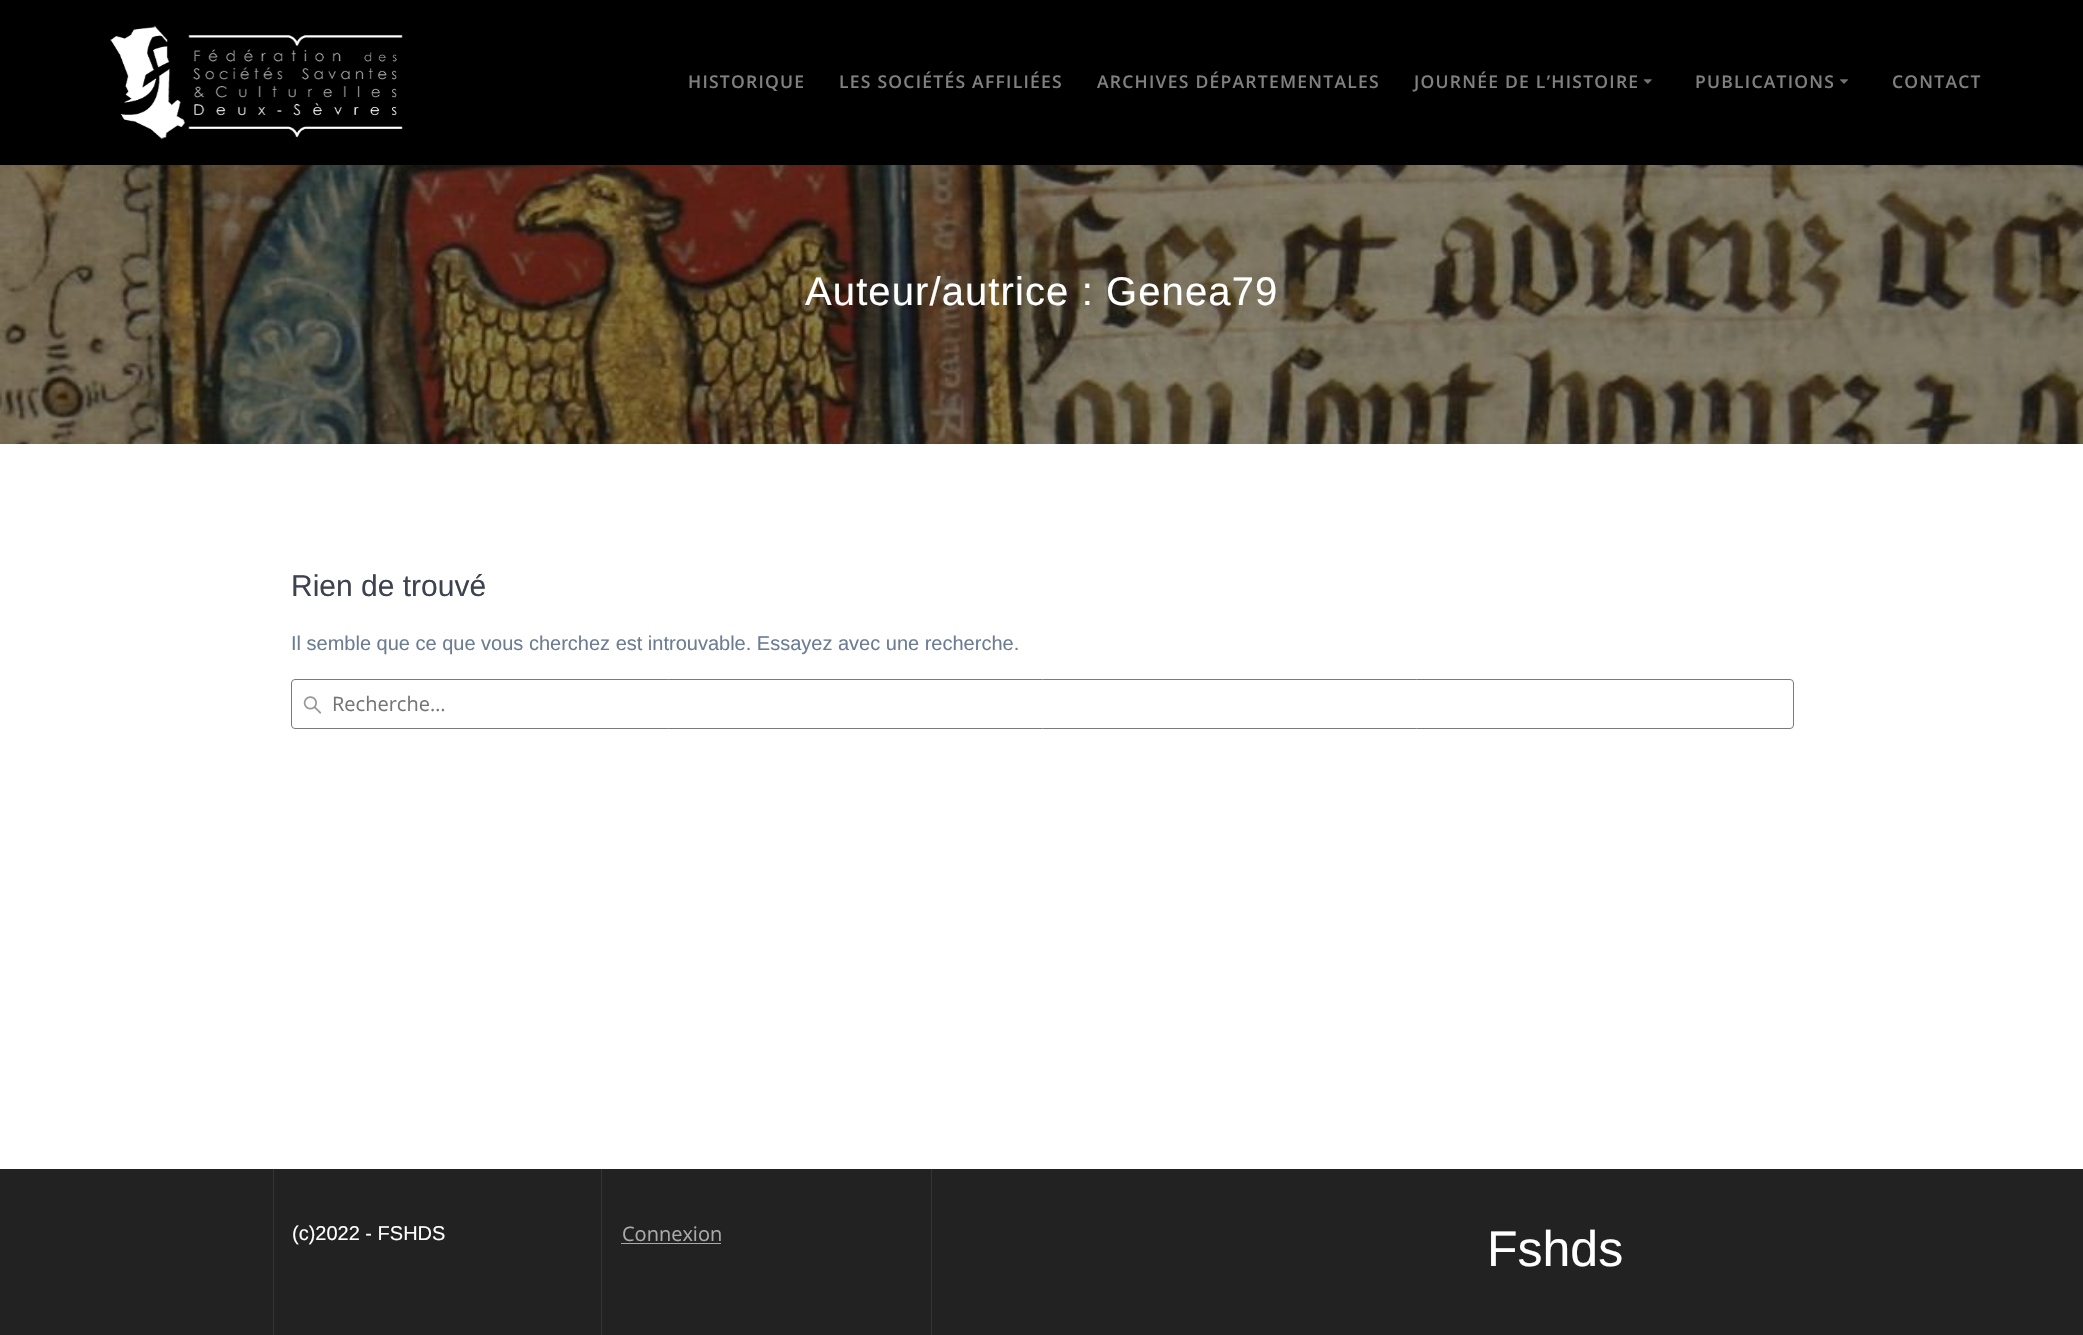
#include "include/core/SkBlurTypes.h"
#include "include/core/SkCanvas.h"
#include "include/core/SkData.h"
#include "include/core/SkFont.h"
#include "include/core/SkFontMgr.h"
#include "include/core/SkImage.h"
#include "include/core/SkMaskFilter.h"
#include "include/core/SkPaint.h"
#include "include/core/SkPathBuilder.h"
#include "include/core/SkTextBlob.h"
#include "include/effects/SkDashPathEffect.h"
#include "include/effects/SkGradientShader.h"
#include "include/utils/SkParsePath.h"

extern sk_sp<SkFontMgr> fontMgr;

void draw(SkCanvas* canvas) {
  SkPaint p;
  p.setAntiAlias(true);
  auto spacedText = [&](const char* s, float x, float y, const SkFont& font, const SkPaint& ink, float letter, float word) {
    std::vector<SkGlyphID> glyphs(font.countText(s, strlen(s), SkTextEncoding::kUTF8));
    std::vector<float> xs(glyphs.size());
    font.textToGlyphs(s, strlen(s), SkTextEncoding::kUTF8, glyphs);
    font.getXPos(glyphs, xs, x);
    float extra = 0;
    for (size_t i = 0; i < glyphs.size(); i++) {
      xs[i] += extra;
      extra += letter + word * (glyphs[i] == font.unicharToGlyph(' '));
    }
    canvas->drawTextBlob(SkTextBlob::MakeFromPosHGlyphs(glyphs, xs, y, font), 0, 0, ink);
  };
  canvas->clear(SK_ColorWHITE);
  p.setColor(SK_ColorBLACK);
  canvas->drawRect(SkRect::MakeLTRB(0, 0, 2083, 165), p);
  canvas->drawImageRect(SkImages::DeferredFromEncodedData(SkData::MakeFromFileName("images/1.png")), SkRect::MakeLTRB(110, 26, 403, 139), SkSamplingOptions());
  canvas->drawImageRect(SkImages::DeferredFromEncodedData(SkData::MakeFromFileName("images/2.png")), SkRect::MakeLTRB(1643, 79, 1652, 84), SkSamplingOptions());
  canvas->drawImageRect(SkImages::DeferredFromEncodedData(SkData::MakeFromFileName("images/3.png")), SkRect::MakeLTRB(1840, 79, 1848, 84), SkSamplingOptions());
  canvas->drawImageRect(SkImages::DeferredFromEncodedData(SkData::MakeFromFileName("images/4.png")), SkRect::MakeLTRB(0, 165, 2083, 444), SkSamplingOptions());
  canvas->drawImageRect(SkImages::DeferredFromEncodedData(SkData::MakeFromFileName("images/5.png")), SkRect::MakeLTRB(303, 696, 322, 714), SkSamplingOptions());
  p.setStyle(SkPaint::kStroke_Style);
  p.setStrokeWidth(1);
  p.setColor(SkColorSetRGB(124, 121, 121));
  canvas->drawRoundRect(SkRect::MakeLTRB(291.5f, 679.5f, 1793.5f, 728.5f), 3.5f, 3.5f, p);
  p.setStyle(SkPaint::kFill_Style);
  p.setColor(SkColorSetRGB(34, 34, 34));
  canvas->drawRect(SkRect::MakeLTRB(0, 1169, 2083, 1335), p);
  p.setColor(SkColorSetRGB(53, 53, 53));
  canvas->drawRect(SkRect::MakeLTRB(273, 1169, 274, 1335), p);
  canvas->drawRect(SkRect::MakeLTRB(601, 1169, 602, 1335), p);
  p.setColor(SkColorSetRGB(170, 170, 170));
  canvas->drawRect(SkRect::MakeLTRB(621, 1243, 721, 1244), p);
  p.setColor(SkColorSetRGB(53, 53, 53));
  canvas->drawRect(SkRect::MakeLTRB(931, 1169, 932, 1335), p);
  SkFont font1(fontMgr->matchFamilyStyle("Open Sans", SkFontStyle(600, SkFontStyle::kNormal_Width, SkFontStyle::kUpright_Slant)), 17.5f);
  font1.setSubpixel(true);
  p.setColor(SkColorSetRGB(128, 128, 128));
  spacedText("HISTORIQUE", 688, 88, font1, p, 1.25f, 0);
  spacedText("LES SOCIÉTÉS AFFILIÉES", 839, 88, font1, p, 1.25f, 0);
  spacedText("ARCHIVES DÉPARTEMENTALES", 1097, 88, font1, p, 1.25f, 0);
  spacedText("JOURNÉE DE L’HISTOIRE", 1414, 88, font1, p, 1.25f, 0);
  spacedText("PUBLICATIONS", 1695, 88, font1, p, 1.25f, 0);
  spacedText("CONTACT", 1892, 88, font1, p, 1.25f, 0);
  SkFont font2(fontMgr->matchFamilyStyle("Liberation Sans", SkFontStyle::Normal()), 40);
  font2.setSubpixel(true);
  p.setColor(SK_ColorWHITE);
  spacedText("Auteur/autrice : Genea79", 805, 305, font2, p, 1.1f, 0);
  SkFont font3(fontMgr->matchFamilyStyle("Liberation Sans", SkFontStyle::Normal()), 30);
  font3.setSubpixel(true);
  p.setColor(SkColorSetRGB(60, 66, 79));
  canvas->drawString("Rien de trouvé", 291, 596, font3, p);
  SkFont font4(fontMgr->matchFamilyStyle("Liberation Sans", SkFontStyle::Normal()), 20);
  font4.setSubpixel(true);
  p.setColor(SkColorSetRGB(107, 124, 147));
  canvas->drawString("Il semble que ce que vous cherchez est introuvable. Essayez avec une recherche.", 291, 650, font4, p);
  SkFont font5(fontMgr->matchFamilyStyle("Open Sans", SkFontStyle::Normal()), 20);
  font5.setSubpixel(true);
  p.setColor(SkColorSetRGB(117, 117, 117));
  canvas->drawString("Recherche…", 332, 711, font5, p);
  p.setColor(SK_ColorWHITE);
  canvas->drawString("(c)2022 - FSHDS", 292, 1240, font4, p);
  p.setColor(SkColorSetRGB(170, 170, 170));
  canvas->drawString("Connexion", 622, 1241, font5, p);
  SkFont font6(fontMgr->matchFamilyStyle("Liberation Sans", SkFontStyle::Normal()), 50);
  font6.setSubpixel(true);
  p.setColor(SK_ColorWHITE);
  canvas->drawString("Fshds", 1487, 1266, font6, p);
}
